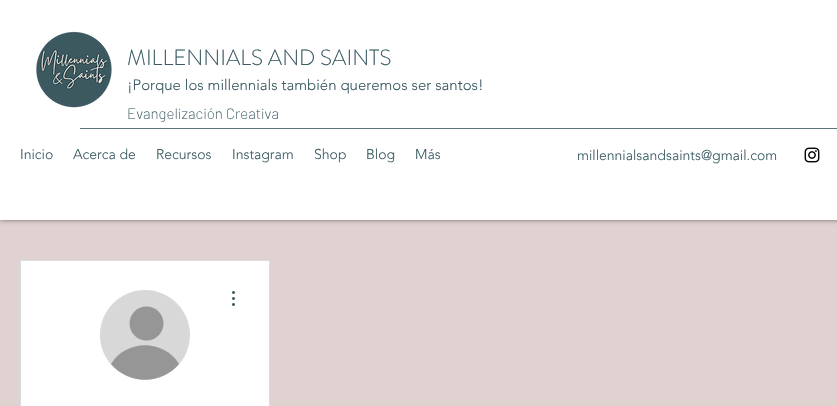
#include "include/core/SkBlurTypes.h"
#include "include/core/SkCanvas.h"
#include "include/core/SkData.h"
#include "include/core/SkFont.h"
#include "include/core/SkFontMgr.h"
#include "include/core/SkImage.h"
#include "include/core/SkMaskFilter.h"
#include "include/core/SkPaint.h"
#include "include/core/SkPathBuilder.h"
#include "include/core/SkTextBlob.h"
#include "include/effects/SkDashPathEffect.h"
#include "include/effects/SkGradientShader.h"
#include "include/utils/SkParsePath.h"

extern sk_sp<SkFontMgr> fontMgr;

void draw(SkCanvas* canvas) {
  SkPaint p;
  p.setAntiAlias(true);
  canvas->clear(SkColorSetRGB(225, 210, 210));
  p.setColor(SkColorSetARGB(128, 0, 0, 0));
  p.setMaskFilter(SkMaskFilter::MakeBlur(kNormal_SkBlurStyle, 2.5f));
  canvas->drawRect(SkRect::MakeLTRB(0, 0, 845, 220), p);
  p.setMaskFilter(nullptr);
  p.setColor(SK_ColorWHITE);
  canvas->drawRect(SkRect::MakeLTRB(0, 0, 837, 220), p);
  canvas->drawImageRect(SkImages::DeferredFromEncodedData(SkData::MakeFromFileName("images/1.png")), SkRect::MakeLTRB(36, 31, 112, 108), SkSamplingOptions());
  p.setColor(SkColorSetRGB(89, 116, 123));
  canvas->drawRect(SkRect::MakeLTRB(80, 128, 837, 129), p);
  canvas->drawImageRect(SkImages::DeferredFromEncodedData(SkData::MakeFromFileName("images/2.png")), SkRect::MakeLTRB(804, 147, 820, 163), SkSamplingOptions());
  p.setColor(SK_ColorWHITE);
  canvas->drawRect(SkRect::MakeLTRB(20.5f, 260.5f, 269.5f, 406.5f), p);
  p.setStyle(SkPaint::kStroke_Style);
  p.setStrokeWidth(1);
  p.setColor(SkColorSetRGB(216, 222, 224));
  canvas->drawRect(SkRect::MakeLTRB(20.5f, 260.5f, 269.5f, 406.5f), p);
  p.setStyle(SkPaint::kFill_Style);
  p.setColor(SkColorSetRGB(216, 216, 216));
  canvas->drawCircle(145, 335, 45, p);
  p.setColor(SkColorSetRGB(150, 150, 150));
  canvas->drawCircle(146.5f, 323.5f, 17, p);
  canvas->drawPath(SkPathBuilder().moveTo(179, 364).cubicTo(161, 385, 129, 385, 111, 364).cubicTo(126, 339, 164, 339, 179, 364).close().detach(), p);
  canvas->drawImageRect(SkImages::DeferredFromEncodedData(SkData::MakeFromFileName("images/3.png")), SkRect::MakeLTRB(232, 291, 235, 306), SkSamplingOptions());
  SkFont font1(fontMgr->matchFamilyStyle("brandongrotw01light", SkFontStyle(300, SkFontStyle::kNormal_Width, SkFontStyle::kUpright_Slant)), 22);
  font1.setSubpixel(true);
  p.setColor(SkColorSetRGB(60, 92, 100));
  canvas->drawString("MILLENNIALS AND SAINTS", 127, 65, font1, p);
  SkFont font2(fontMgr->matchFamilyStyle("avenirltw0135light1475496", SkFontStyle(300, SkFontStyle::kNormal_Width, SkFontStyle::kUpright_Slant)), 15);
  font2.setSubpixel(true);
  canvas->drawString("¡Porque los millennials también queremos ser santos!", 127, 90, font2, p);
  SkFont font3(fontMgr->matchFamilyStyle("Barlow", SkFontStyle(200, SkFontStyle::kNormal_Width, SkFontStyle::kUpright_Slant)), 15);
  font3.setSubpixel(true);
  canvas->drawString("Evangelización Creativa", 127, 119, font3, p);
  SkFont font4(fontMgr->matchFamilyStyle("avenirltw0135light1475496", SkFontStyle(300, SkFontStyle::kNormal_Width, SkFontStyle::kUpright_Slant)), 14);
  font4.setSubpixel(true);
  canvas->drawString("Inicio", 20, 159, font4, p);
  canvas->drawString("Acerca de", 73, 159, font4, p);
  canvas->drawString("Recursos", 156, 159, font4, p);
  canvas->drawString("Instagram", 232, 159, font4, p);
  canvas->drawString("Shop", 314, 159, font4, p);
  canvas->drawString("Blog", 366, 159, font4, p);
  canvas->drawString("Más", 415, 159, font4, p);
  canvas->drawString("millennialsandsaints@gmail.com", 577, 160, font4, p);
}
